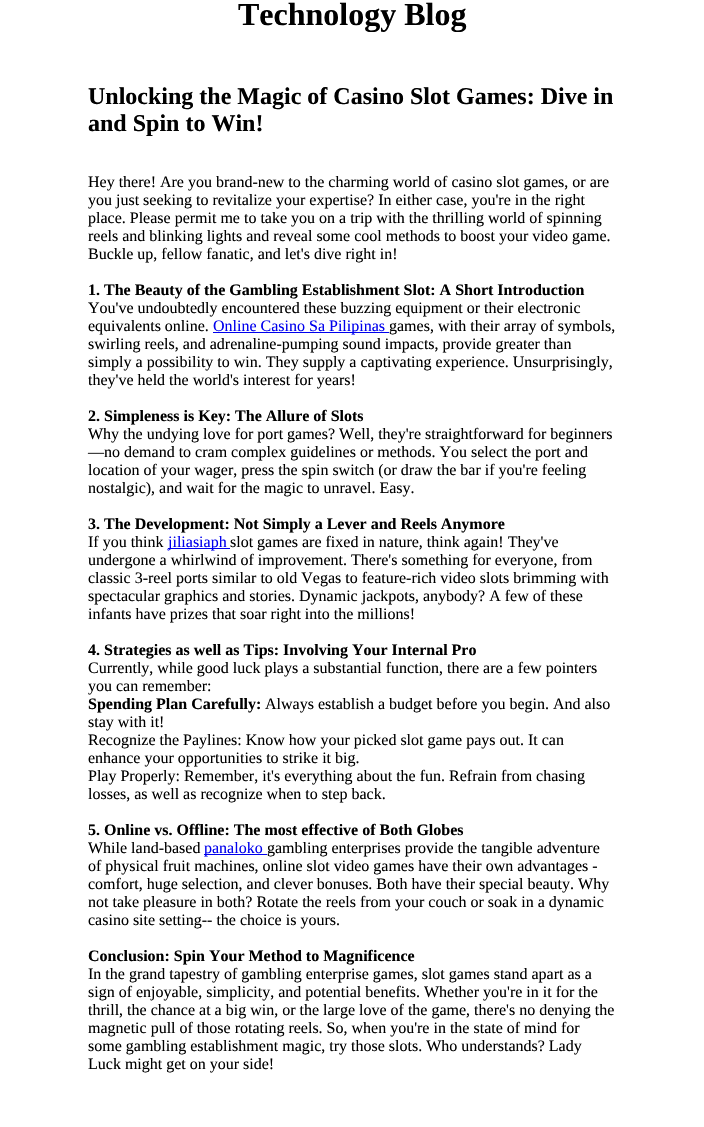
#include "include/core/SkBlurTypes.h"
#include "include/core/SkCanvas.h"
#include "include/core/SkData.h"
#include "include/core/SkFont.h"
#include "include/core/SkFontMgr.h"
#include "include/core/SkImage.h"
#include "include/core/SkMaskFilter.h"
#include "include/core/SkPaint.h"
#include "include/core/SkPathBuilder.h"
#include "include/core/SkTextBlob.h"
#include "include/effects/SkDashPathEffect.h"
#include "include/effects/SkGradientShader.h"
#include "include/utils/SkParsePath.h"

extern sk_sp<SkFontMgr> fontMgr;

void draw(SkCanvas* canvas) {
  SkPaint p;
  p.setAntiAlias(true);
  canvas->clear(SK_ColorWHITE);
  p.setColor(SkColorSetRGB(0, 0, 238));
  canvas->drawRect(SkRect::MakeLTRB(213, 332, 389, 333), p);
  canvas->drawRect(SkRect::MakeLTRB(168, 548, 230, 549), p);
  canvas->drawRect(SkRect::MakeLTRB(204, 854, 267, 855), p);
  SkFont font1(fontMgr->matchFamilyStyle("Liberation Serif", SkFontStyle::Bold()), 32);
  font1.setSubpixel(true);
  p.setColor(SK_ColorBLACK);
  canvas->drawString("Technology Blog", 238, 25, font1, p);
  SkFont font2(fontMgr->matchFamilyStyle("Liberation Serif", SkFontStyle::Bold()), 24);
  font2.setSubpixel(true);
  canvas->drawString("Unlocking the Magic of Casino Slot Games: Dive in", 88, 104, font2, p);
  canvas->drawString("and Spin to Win!", 88, 131, font2, p);
  SkFont font3(fontMgr->matchFamilyStyle("Liberation Serif", SkFontStyle::Normal()), 16);
  font3.setSubpixel(true);
  canvas->drawString("Hey there! Are you brand-new to the charming world of casino slot games, or are", 88, 187, font3, p);
  canvas->drawString("you just seeking to revitalize your expertise? In either case, you're in the right", 88, 205, font3, p);
  canvas->drawString("place. Please permit me to take you on a trip with the thrilling world of spinning", 88, 223, font3, p);
  canvas->drawString("reels and blinking lights and reveal some cool methods to boost your video game.", 88, 241, font3, p);
  canvas->drawString("Buckle up, fellow fanatic, and let's dive right in!", 88, 259, font3, p);
  SkFont font4(fontMgr->matchFamilyStyle("Liberation Serif", SkFontStyle::Bold()), 16);
  font4.setSubpixel(true);
  canvas->drawString("1. The Beauty of the Gambling Establishment Slot: A Short Introduction", 88, 295, font4, p);
  canvas->drawString("You've undoubtedly encountered these buzzing equipment or their electronic", 88, 313, font3, p);
  canvas->drawString("equivalents online.", 88, 331, font3, p);
  p.setColor(SkColorSetRGB(0, 0, 238));
  canvas->drawString("Online Casino Sa Pilipinas", 213, 331, font3, p);
  p.setColor(SK_ColorBLACK);
  canvas->drawString("games, with their array of symbols,", 389, 331, font3, p);
  canvas->drawString("swirling reels, and adrenaline-pumping sound impacts, provide greater than", 88, 349, font3, p);
  canvas->drawString("simply a possibility to win. They supply a captivating experience. Unsurprisingly,", 88, 367, font3, p);
  canvas->drawString("they've held the world's interest for years!", 88, 385, font3, p);
  canvas->drawString("2. Simpleness is Key: The Allure of Slots", 88, 421, font4, p);
  canvas->drawString("Why the undying love for port games? Well, they're straightforward for beginners", 88, 439, font3, p);
  canvas->drawString("—no demand to cram complex guidelines or methods. You select the port and", 88, 457, font3, p);
  canvas->drawString("location of your wager, press the spin switch (or draw the bar if you're feeling", 88, 475, font3, p);
  canvas->drawString("nostalgic), and wait for the magic to unravel. Easy.", 88, 493, font3, p);
  canvas->drawString("3. The Development: Not Simply a Lever and Reels Anymore", 88, 529, font4, p);
  canvas->drawString("If you think", 88, 547, font3, p);
  p.setColor(SkColorSetRGB(0, 0, 238));
  canvas->drawString("jiliasiaph", 168, 547, font3, p);
  p.setColor(SK_ColorBLACK);
  canvas->drawString("slot games are fixed in nature, think again! They've", 230, 547, font3, p);
  canvas->drawString("undergone a whirlwind of improvement. There's something for everyone, from", 88, 565, font3, p);
  canvas->drawString("classic 3-reel ports similar to old Vegas to feature-rich video slots brimming with", 88, 583, font3, p);
  canvas->drawString("spectacular graphics and stories. Dynamic jackpots, anybody? A few of these", 88, 601, font3, p);
  canvas->drawString("infants have prizes that soar right into the millions!", 88, 619, font3, p);
  canvas->drawString("4. Strategies as well as Tips: Involving Your Internal Pro", 88, 655, font4, p);
  canvas->drawString("Currently, while good luck plays a substantial function, there are a few pointers", 88, 673, font3, p);
  canvas->drawString("you can remember:", 88, 691, font3, p);
  canvas->drawString("Spending Plan Carefully:", 88, 709, font4, p);
  canvas->drawString("Always establish a budget before you begin. And also", 265, 709, font3, p);
  canvas->drawString("stay with it!", 88, 727, font3, p);
  canvas->drawString("Recognize the Paylines: Know how your picked slot game pays out. It can", 88, 745, font3, p);
  canvas->drawString("enhance your opportunities to strike it big.", 88, 763, font3, p);
  canvas->drawString("Play Properly: Remember, it's everything about the fun. Refrain from chasing", 88, 781, font3, p);
  canvas->drawString("losses, as well as recognize when to step back.", 88, 799, font3, p);
  canvas->drawString("5. Online vs. Offline: The most effective of Both Globes", 88, 835, font4, p);
  canvas->drawString("While land-based", 88, 853, font3, p);
  p.setColor(SkColorSetRGB(0, 0, 238));
  canvas->drawString("panaloko", 204, 853, font3, p);
  p.setColor(SK_ColorBLACK);
  canvas->drawString("gambling enterprises provide the tangible adventure", 267, 853, font3, p);
  canvas->drawString("of physical fruit machines, online slot video games have their own advantages -", 88, 871, font3, p);
  canvas->drawString("comfort, huge selection, and clever bonuses. Both have their special beauty. Why", 88, 889, font3, p);
  canvas->drawString("not take pleasure in both? Rotate the reels from your couch or soak in a dynamic", 88, 907, font3, p);
  canvas->drawString("casino site setting-- the choice is yours.", 88, 925, font3, p);
  canvas->drawString("Conclusion: Spin Your Method to Magnificence", 88, 961, font4, p);
  canvas->drawString("In the grand tapestry of gambling enterprise games, slot games stand apart as a", 88, 979, font3, p);
  canvas->drawString("sign of enjoyable, simplicity, and potential benefits. Whether you're in it for the", 88, 997, font3, p);
  canvas->drawString("thrill, the chance at a big win, or the large love of the game, there's no denying the", 88, 1015, font3, p);
  canvas->drawString("magnetic pull of those rotating reels. So, when you're in the state of mind for", 88, 1033, font3, p);
  canvas->drawString("some gambling establishment magic, try those slots. Who understands? Lady", 88, 1051, font3, p);
  canvas->drawString("Luck might get on your side!", 88, 1069, font3, p);
}
